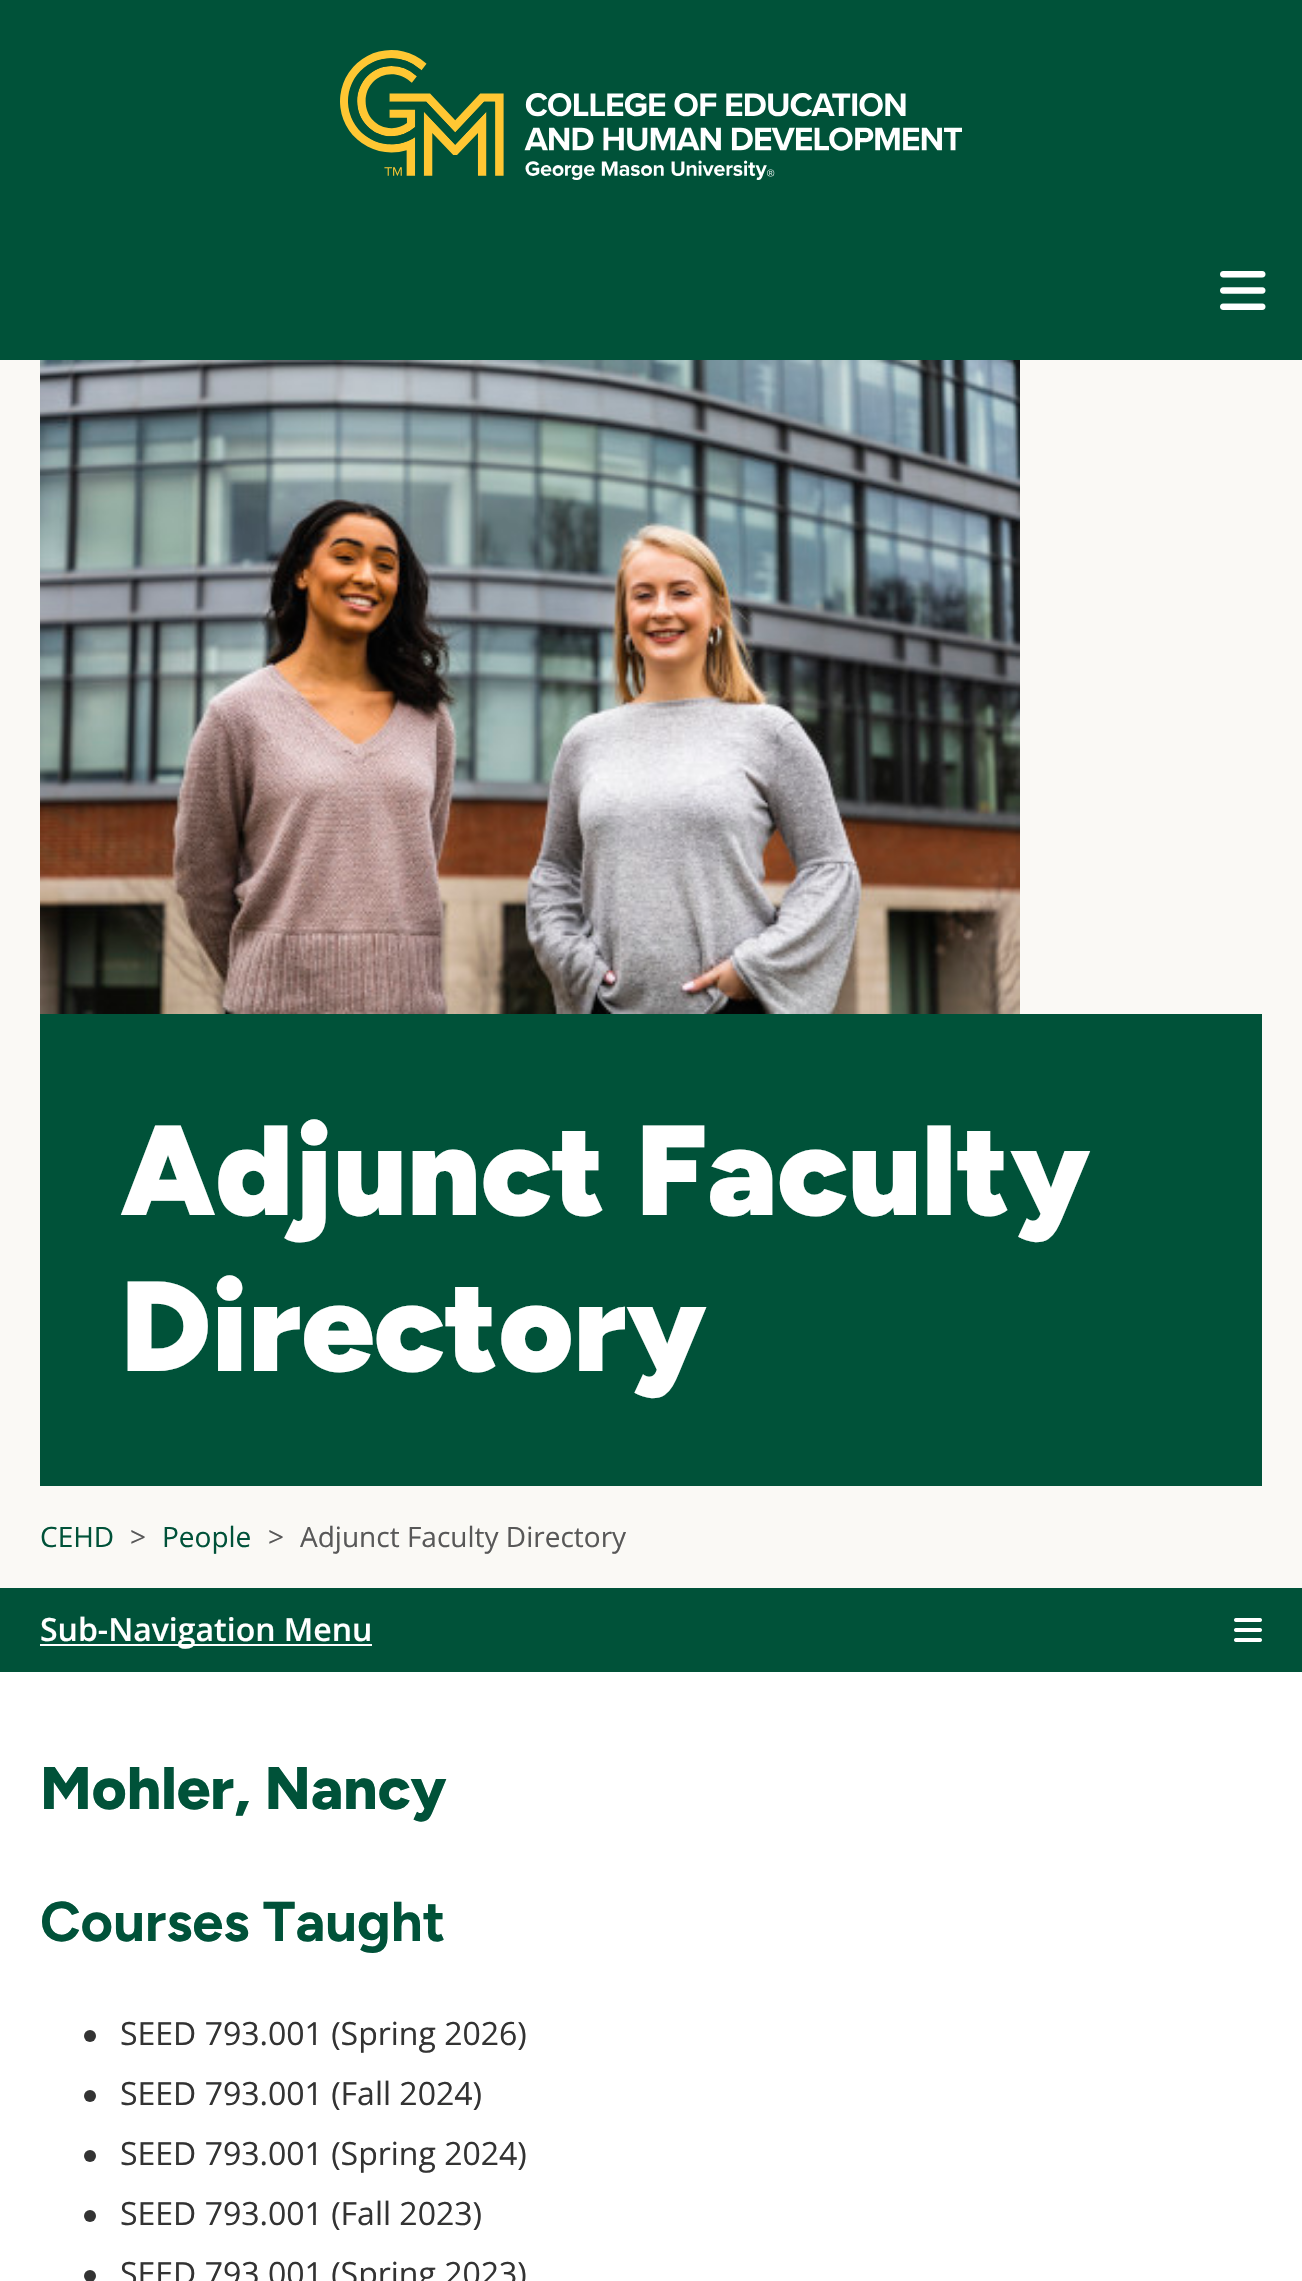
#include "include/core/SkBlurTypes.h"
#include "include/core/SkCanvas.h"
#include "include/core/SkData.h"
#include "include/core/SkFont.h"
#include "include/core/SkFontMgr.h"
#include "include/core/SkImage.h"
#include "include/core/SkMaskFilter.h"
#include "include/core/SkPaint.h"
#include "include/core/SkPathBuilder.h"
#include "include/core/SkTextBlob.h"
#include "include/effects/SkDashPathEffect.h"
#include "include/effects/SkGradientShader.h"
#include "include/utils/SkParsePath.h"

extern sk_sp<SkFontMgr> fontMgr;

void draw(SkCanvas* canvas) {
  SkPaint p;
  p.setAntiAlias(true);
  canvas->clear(SK_ColorWHITE);
  p.setColor(SkColorSetRGB(0, 82, 57));
  canvas->drawRect(SkRect::MakeLTRB(0, 0, 1302, 360), p);
  canvas->drawImageRect(SkImages::DeferredFromEncodedData(SkData::MakeFromFileName("images/1.png")), SkRect::MakeLTRB(340, 50, 962, 180), SkSamplingOptions());
  canvas->drawImageRect(SkImages::DeferredFromEncodedData(SkData::MakeFromFileName("images/2.png")), SkRect::MakeLTRB(1220, 271, 1266, 310), SkSamplingOptions());
  p.setColor(SkColorSetRGB(250, 249, 245));
  canvas->drawRect(SkRect::MakeLTRB(0, 360, 1302, 1588), p);
  canvas->drawImageRect(SkImages::DeferredFromEncodedData(SkData::MakeFromFileName("images/3.png")), SkRect::MakeLTRB(40, 360, 1020, 1014), SkSamplingOptions());
  p.setColor(SkColorSetRGB(0, 82, 57));
  canvas->drawRect(SkRect::MakeLTRB(40, 1014, 1262, 1486), p);
  canvas->drawRect(SkRect::MakeLTRB(0, 1588, 1302, 1672), p);
  p.setColor(SK_ColorWHITE);
  canvas->drawRect(SkRect::MakeLTRB(40, 1644, 372, 1646), p);
  canvas->drawImageRect(SkImages::DeferredFromEncodedData(SkData::MakeFromFileName("images/4.png")), SkRect::MakeLTRB(1234, 1618, 1262, 1642), SkSamplingOptions());
  p.setColor(SkColorSetRGB(51, 51, 51));
  canvas->drawCircle(90, 2036, 6, p);
  canvas->drawCircle(90, 2096, 6, p);
  canvas->drawCircle(90, 2156, 6, p);
  canvas->drawCircle(90, 2216, 6, p);
  canvas->drawCircle(90, 2276, 6, p);
  SkFont font1(fontMgr->matchFamilyStyle("Figtree", SkFontStyle(900, SkFontStyle::kNormal_Width, SkFontStyle::kUpright_Slant)), 128);
  font1.setSubpixel(true);
  p.setColor(SK_ColorWHITE);
  canvas->drawString("Adjunct Faculty", 120, 1215, font1, p);
  canvas->drawString("Directory", 120, 1371, font1, p);
  SkFont font2(fontMgr->matchFamilyStyle("Open Sans", SkFontStyle::Normal()), 28);
  font2.setSubpixel(true);
  p.setColor(SkColorSetRGB(0, 82, 57));
  canvas->drawString("CEHD", 40, 1547, font2, p);
  p.setColor(SkColorSetRGB(88, 88, 88));
  canvas->drawString(">", 130, 1547, font2, p);
  p.setColor(SkColorSetRGB(0, 82, 57));
  canvas->drawString("People", 162, 1547, font2, p);
  p.setColor(SkColorSetRGB(88, 88, 88));
  canvas->drawString(">", 268, 1547, font2, p);
  canvas->drawString("Adjunct Faculty Directory", 300, 1547, font2, p);
  SkFont font3(fontMgr->matchFamilyStyle("Open Sans", SkFontStyle(600, SkFontStyle::kNormal_Width, SkFontStyle::kUpright_Slant)), 32);
  font3.setSubpixel(true);
  p.setColor(SK_ColorWHITE);
  canvas->drawString("Sub-Navigation Menu", 40, 1641, font3, p);
  SkFont font4(fontMgr->matchFamilyStyle("Figtree", SkFontStyle(800, SkFontStyle::kNormal_Width, SkFontStyle::kUpright_Slant)), 60);
  font4.setSubpixel(true);
  p.setColor(SkColorSetRGB(0, 82, 57));
  canvas->drawString("Mohler, Nancy", 40, 1809, font4, p);
  SkFont font5(fontMgr->matchFamilyStyle("Figtree", SkFontStyle::Bold()), 56);
  font5.setSubpixel(true);
  canvas->drawString("Courses Taught", 40, 1941, font5, p);
  SkFont font6(fontMgr->matchFamilyStyle("Open Sans", SkFontStyle::Normal()), 32);
  font6.setSubpixel(true);
  p.setColor(SkColorSetRGB(51, 51, 51));
  canvas->drawString("SEED 793.001 (Spring 2026)", 120, 2045, font6, p);
  canvas->drawString("SEED 793.001 (Fall 2024)", 120, 2105, font6, p);
  canvas->drawString("SEED 793.001 (Spring 2024)", 120, 2165, font6, p);
  canvas->drawString("SEED 793.001 (Fall 2023)", 120, 2225, font6, p);
  canvas->drawString("SEED 793.001 (Spring 2023)", 120, 2285, font6, p);
}
